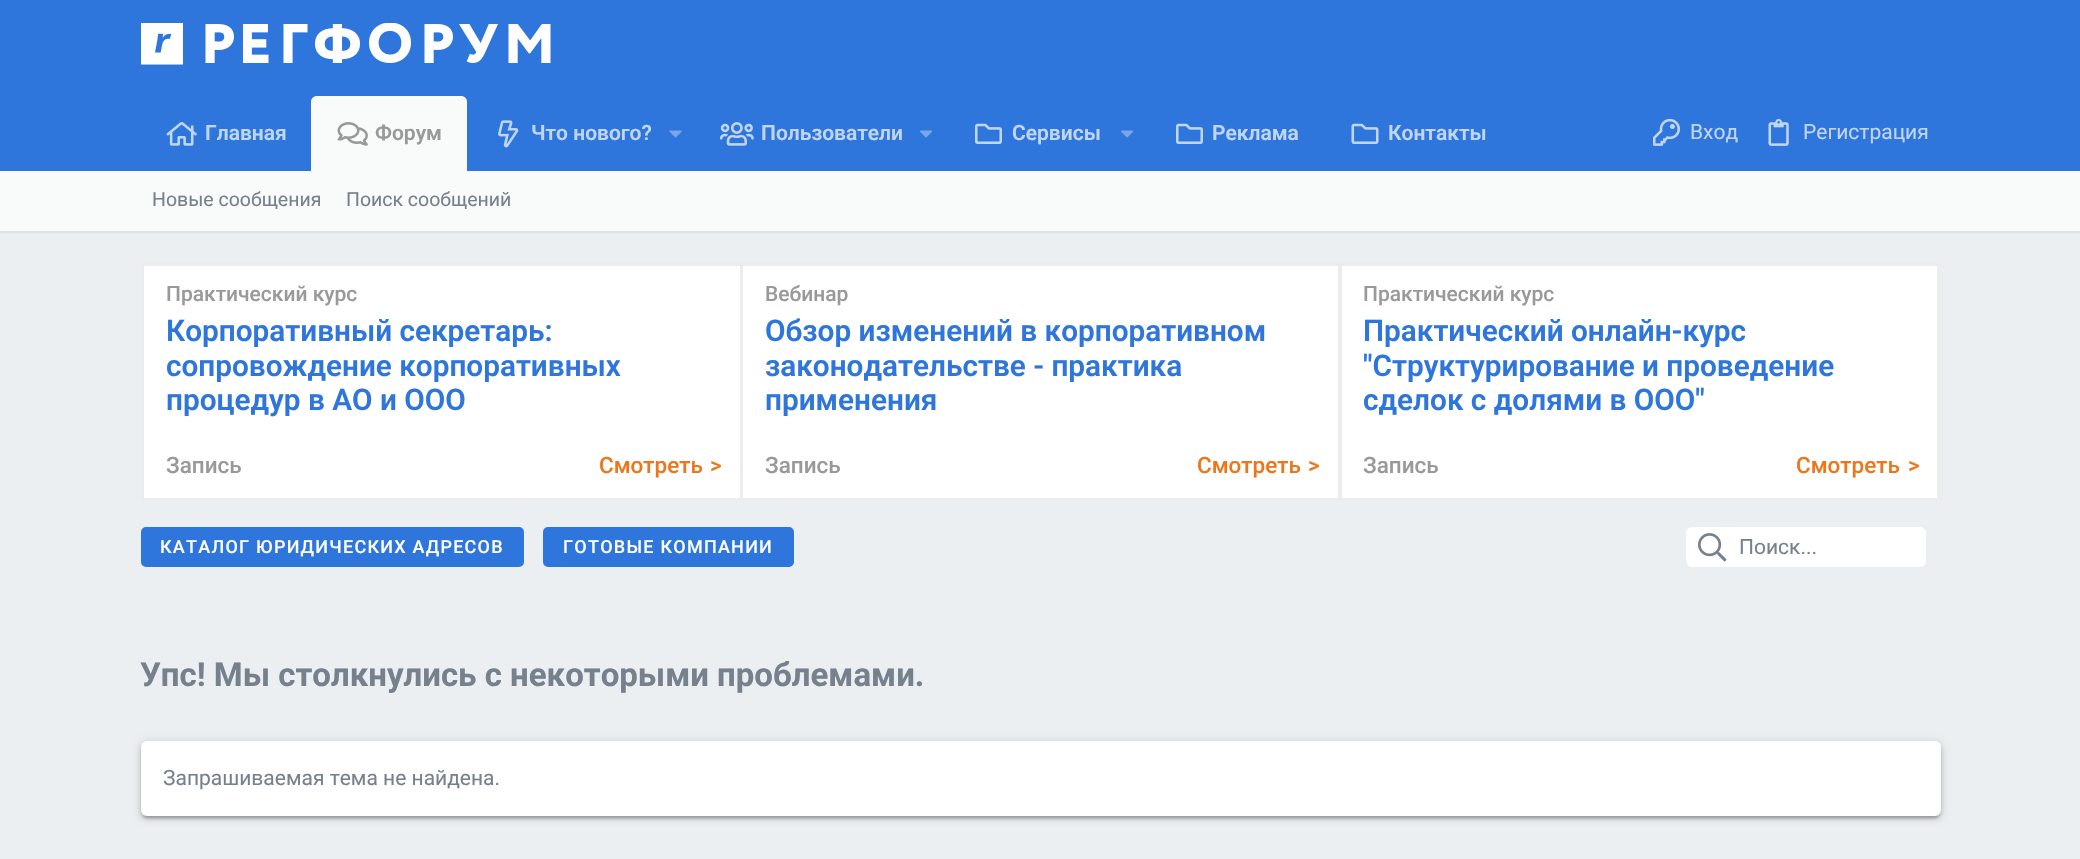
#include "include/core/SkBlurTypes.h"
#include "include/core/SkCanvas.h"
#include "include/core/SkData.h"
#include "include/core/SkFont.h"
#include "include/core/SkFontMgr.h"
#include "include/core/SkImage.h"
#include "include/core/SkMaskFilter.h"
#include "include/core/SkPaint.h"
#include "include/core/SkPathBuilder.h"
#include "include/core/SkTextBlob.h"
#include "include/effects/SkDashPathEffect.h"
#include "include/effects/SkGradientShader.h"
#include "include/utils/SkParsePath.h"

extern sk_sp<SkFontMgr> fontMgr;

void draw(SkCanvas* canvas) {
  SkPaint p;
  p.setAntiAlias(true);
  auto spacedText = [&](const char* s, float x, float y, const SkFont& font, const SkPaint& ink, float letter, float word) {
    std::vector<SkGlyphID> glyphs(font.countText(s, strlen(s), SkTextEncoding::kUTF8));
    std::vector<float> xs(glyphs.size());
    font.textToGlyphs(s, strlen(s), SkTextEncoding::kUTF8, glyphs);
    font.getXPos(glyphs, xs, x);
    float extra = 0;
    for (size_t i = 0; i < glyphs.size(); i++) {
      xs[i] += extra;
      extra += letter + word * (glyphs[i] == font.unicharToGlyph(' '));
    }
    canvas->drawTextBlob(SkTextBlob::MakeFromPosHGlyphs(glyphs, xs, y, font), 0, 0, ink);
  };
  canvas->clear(SkColorSetRGB(236, 239, 241));
  p.setColor(SkColorSetRGB(47, 118, 220));
  canvas->drawRect(SkRect::MakeLTRB(0, 0, 2080, 171), p);
  canvas->drawImageRect(SkImages::DeferredFromEncodedData(SkData::MakeFromFileName("images/1.png")), SkRect::MakeLTRB(141, 23, 551, 65), SkSamplingOptions());
  canvas->drawImageRect(SkImages::DeferredFromEncodedData(SkData::MakeFromFileName("images/2.png")), SkRect::MakeLTRB(166, 122, 197, 146), SkSamplingOptions());
  p.setColor(SkColorSetRGB(249, 250, 250));
  canvas->drawPath(SkPathBuilder().moveTo(317, 96).lineTo(461, 96).cubicTo(464.5f, 96, 467, 98.5f, 467, 102).lineTo(467, 171).lineTo(311, 171).lineTo(311, 102).cubicTo(311, 98.5f, 313.5f, 96, 317, 96).close().detach(), p);
  canvas->drawImageRect(SkImages::DeferredFromEncodedData(SkData::MakeFromFileName("images/3.png")), SkRect::MakeLTRB(337, 122, 368, 146), SkSamplingOptions());
  canvas->drawImageRect(SkImages::DeferredFromEncodedData(SkData::MakeFromFileName("images/4.png")), SkRect::MakeLTRB(498, 120, 519, 148), SkSamplingOptions());
  canvas->drawImageRect(SkImages::DeferredFromEncodedData(SkData::MakeFromFileName("images/5.png")), SkRect::MakeLTRB(669, 130, 682, 138), SkSamplingOptions());
  canvas->drawImageRect(SkImages::DeferredFromEncodedData(SkData::MakeFromFileName("images/6.png")), SkRect::MakeLTRB(720, 122, 754, 146), SkSamplingOptions());
  canvas->drawImageRect(SkImages::DeferredFromEncodedData(SkData::MakeFromFileName("images/7.png")), SkRect::MakeLTRB(920, 130, 933, 138), SkSamplingOptions());
  canvas->drawImageRect(SkImages::DeferredFromEncodedData(SkData::MakeFromFileName("images/8.png")), SkRect::MakeLTRB(975, 123, 1002, 144), SkSamplingOptions());
  canvas->drawImageRect(SkImages::DeferredFromEncodedData(SkData::MakeFromFileName("images/7.png")), SkRect::MakeLTRB(1121, 130, 1134, 138), SkSamplingOptions());
  canvas->drawImageRect(SkImages::DeferredFromEncodedData(SkData::MakeFromFileName("images/8.png")), SkRect::MakeLTRB(1176, 123, 1203, 144), SkSamplingOptions());
  canvas->drawImageRect(SkImages::DeferredFromEncodedData(SkData::MakeFromFileName("images/9.png")), SkRect::MakeLTRB(1351, 123, 1379, 144), SkSamplingOptions());
  canvas->drawImageRect(SkImages::DeferredFromEncodedData(SkData::MakeFromFileName("images/10.png")), SkRect::MakeLTRB(1653, 118, 1680, 146), SkSamplingOptions());
  canvas->drawImageRect(SkImages::DeferredFromEncodedData(SkData::MakeFromFileName("images/11.png")), SkRect::MakeLTRB(1768, 118, 1789, 146), SkSamplingOptions());
  canvas->drawRect(SkRect::MakeLTRB(0, 171, 2080, 231), p);
  p.setColor(SkColorSetRGB(224, 224, 224));
  canvas->drawRect(SkRect::MakeLTRB(0, 231, 2080, 233), p);
  p.setStyle(SkPaint::kStroke_Style);
  p.setStrokeWidth(3);
  p.setColor(SkColorSetRGB(236, 236, 236));
  canvas->drawRect(SkRect::MakeLTRB(142.5f, 264.5f, 1939.5f, 499.5f), p);
  p.setStyle(SkPaint::kFill_Style);
  p.setColor(SK_ColorWHITE);
  canvas->drawRect(SkRect::MakeLTRB(144, 266, 740, 498), p);
  p.setColor(SkColorSetRGB(236, 236, 236));
  canvas->drawRect(SkRect::MakeLTRB(740, 266, 743, 498), p);
  p.setColor(SK_ColorWHITE);
  canvas->drawRect(SkRect::MakeLTRB(743, 266, 1338, 498), p);
  p.setColor(SkColorSetRGB(236, 236, 236));
  canvas->drawRect(SkRect::MakeLTRB(1338, 266, 1342, 498), p);
  p.setColor(SK_ColorWHITE);
  canvas->drawRect(SkRect::MakeLTRB(1342, 266, 1937, 498), p);
  p.setColor(SkColorSetRGB(47, 118, 220));
  canvas->drawRoundRect(SkRect::MakeLTRB(142, 528, 523, 566), 4, 4, p);
  p.setStyle(SkPaint::kStroke_Style);
  p.setStrokeWidth(2);
  canvas->drawRoundRect(SkRect::MakeLTRB(142, 528, 523, 566), 4, 4, p);
  p.setStyle(SkPaint::kFill_Style);
  canvas->drawRoundRect(SkRect::MakeLTRB(544, 528, 793, 566), 4, 4, p);
  p.setStyle(SkPaint::kStroke_Style);
  canvas->drawRoundRect(SkRect::MakeLTRB(544, 528, 793, 566), 4, 4, p);
  p.setStyle(SkPaint::kFill_Style);
  p.setColor(SK_ColorWHITE);
  canvas->drawRoundRect(SkRect::MakeLTRB(1686, 527, 1926, 567), 6, 6, p);
  canvas->drawImageRect(SkImages::DeferredFromEncodedData(SkData::MakeFromFileName("images/12.png")), SkRect::MakeLTRB(1698, 533, 1727, 562), SkSamplingOptions());
  p.setColor(SkColorSetARGB(51, 0, 0, 0));
  p.setMaskFilter(SkMaskFilter::MakeBlur(kNormal_SkBlurStyle, 4));
  canvas->drawRoundRect(SkRect::MakeLTRB(141, 743, 1941, 818), 6, 6, p);
  p.setMaskFilter(nullptr);
  p.setColor(SkColorSetARGB(31, 0, 0, 0));
  p.setMaskFilter(SkMaskFilter::MakeBlur(kNormal_SkBlurStyle, 1));
  canvas->drawRoundRect(SkRect::MakeLTRB(144, 749, 1938, 818), 3, 3, p);
  p.setMaskFilter(nullptr);
  p.setColor(SkColorSetARGB(36, 0, 0, 0));
  p.setMaskFilter(SkMaskFilter::MakeBlur(kNormal_SkBlurStyle, 1.5f));
  canvas->drawRoundRect(SkRect::MakeLTRB(141, 744, 1941, 819), 6, 6, p);
  p.setMaskFilter(nullptr);
  p.setColor(SK_ColorWHITE);
  canvas->drawRoundRect(SkRect::MakeLTRB(141, 741, 1941, 816), 6, 6, p);
  SkFont font1(fontMgr->matchFamilyStyle("Roboto", SkFontStyle(600, SkFontStyle::kNormal_Width, SkFontStyle::kUpright_Slant)), 21);
  font1.setSubpixel(true);
  p.setColor(SkColorSetRGB(193, 214, 245));
  canvas->drawString("Главная", 205, 140, font1, p);
  p.setColor(SkColorSetRGB(153, 153, 153));
  canvas->drawString("Форум", 375, 140, font1, p);
  p.setColor(SkColorSetRGB(193, 214, 245));
  canvas->drawString("Что нового?", 531, 140, font1, p);
  canvas->drawString("Пользователи", 761, 140, font1, p);
  canvas->drawString("Сервисы", 1012, 140, font1, p);
  canvas->drawString("Реклама", 1212, 140, font1, p);
  canvas->drawString("Контакты", 1388, 140, font1, p);
  SkFont font2(fontMgr->matchFamilyStyle("Roboto", SkFontStyle::Normal()), 21);
  font2.setSubpixel(true);
  canvas->drawString("Вход", 1690, 139, font2, p);
  canvas->drawString("Регистрация", 1803, 139, font2, p);
  SkFont font3(fontMgr->matchFamilyStyle("Roboto", SkFontStyle::Normal()), 19.5f);
  font3.setSubpixel(true);
  p.setColor(SkColorSetRGB(118, 129, 141));
  canvas->drawString("Новые сообщения", 152, 206, font3, p);
  canvas->drawString("Поиск сообщений", 346, 206, font3, p);
  SkFont font4(fontMgr->matchFamilyStyle("Roboto", SkFontStyle(500, SkFontStyle::kNormal_Width, SkFontStyle::kUpright_Slant)), 21);
  font4.setSubpixel(true);
  p.setColor(SkColorSetRGB(153, 153, 153));
  canvas->drawString("Практический курс", 166, 301, font4, p);
  SkFont font5(fontMgr->matchFamilyStyle("Roboto", SkFontStyle(600, SkFontStyle::kNormal_Width, SkFontStyle::kUpright_Slant)), 29.75f);
  font5.setSubpixel(true);
  p.setColor(SkColorSetRGB(47, 118, 220));
  canvas->drawString("Корпоративный секретарь:", 166, 341, font5, p);
  canvas->drawString("сопровождение корпоративных", 166, 376, font5, p);
  canvas->drawString("процедур в АО и ООО", 166, 410, font5, p);
  SkFont font6(fontMgr->matchFamilyStyle("Roboto", SkFontStyle(500, SkFontStyle::kNormal_Width, SkFontStyle::kUpright_Slant)), 22.5f);
  font6.setSubpixel(true);
  p.setColor(SkColorSetRGB(153, 153, 153));
  canvas->drawString("Запись", 166, 473, font6, p);
  p.setColor(SkColorSetRGB(237, 118, 27));
  canvas->drawString("Смотреть", 599, 473, font6, p);
  canvas->drawString(">", 710, 473, font6, p);
  p.setColor(SkColorSetRGB(153, 153, 153));
  canvas->drawString("Вебинар", 765, 301, font4, p);
  p.setColor(SkColorSetRGB(47, 118, 220));
  canvas->drawString("Обзор изменений в корпоративном", 765, 341, font5, p);
  canvas->drawString("законодательстве - практика", 765, 376, font5, p);
  canvas->drawString("применения", 765, 410, font5, p);
  p.setColor(SkColorSetRGB(153, 153, 153));
  canvas->drawString("Запись", 765, 473, font6, p);
  p.setColor(SkColorSetRGB(237, 118, 27));
  canvas->drawString("Смотреть", 1197, 473, font6, p);
  canvas->drawString(">", 1308, 473, font6, p);
  p.setColor(SkColorSetRGB(153, 153, 153));
  canvas->drawString("Практический курс", 1363, 301, font4, p);
  p.setColor(SkColorSetRGB(47, 118, 220));
  canvas->drawString("Практический онлайн-курс", 1363, 341, font5, p);
  canvas->drawString("\"Структурирование и проведение", 1363, 376, font5, p);
  canvas->drawString("сделок с долями в ООО\"", 1363, 410, font5, p);
  p.setColor(SkColorSetRGB(153, 153, 153));
  canvas->drawString("Запись", 1363, 473, font6, p);
  p.setColor(SkColorSetRGB(237, 118, 27));
  canvas->drawString("Смотреть", 1796, 473, font6, p);
  canvas->drawString(">", 1908, 473, font6, p);
  SkFont font7(fontMgr->matchFamilyStyle("Roboto", SkFontStyle(500, SkFontStyle::kNormal_Width, SkFontStyle::kUpright_Slant)), 18);
  font7.setSubpixel(true);
  p.setColor(SK_ColorWHITE);
  spacedText("КАТАЛОГ ЮРИДИЧЕСКИХ АДРЕСОВ", 160, 553, font7, p, 1.25f, 0);
  spacedText("ГОТОВЫЕ КОМПАНИИ", 563, 553, font7, p, 1.25f, 0);
  p.setColor(SkColorSetRGB(118, 129, 141));
  canvas->drawString("Поиск...", 1739, 554, font2, p);
  SkFont font8(fontMgr->matchFamilyStyle("Roboto", SkFontStyle::Bold()), 33);
  font8.setSubpixel(true);
  canvas->drawString("Упс! Мы столкнулись с некоторыми проблемами.", 140, 686, font8, p);
  canvas->drawString("Запрашиваемая тема не найдена.", 163, 785, font2, p);
}
